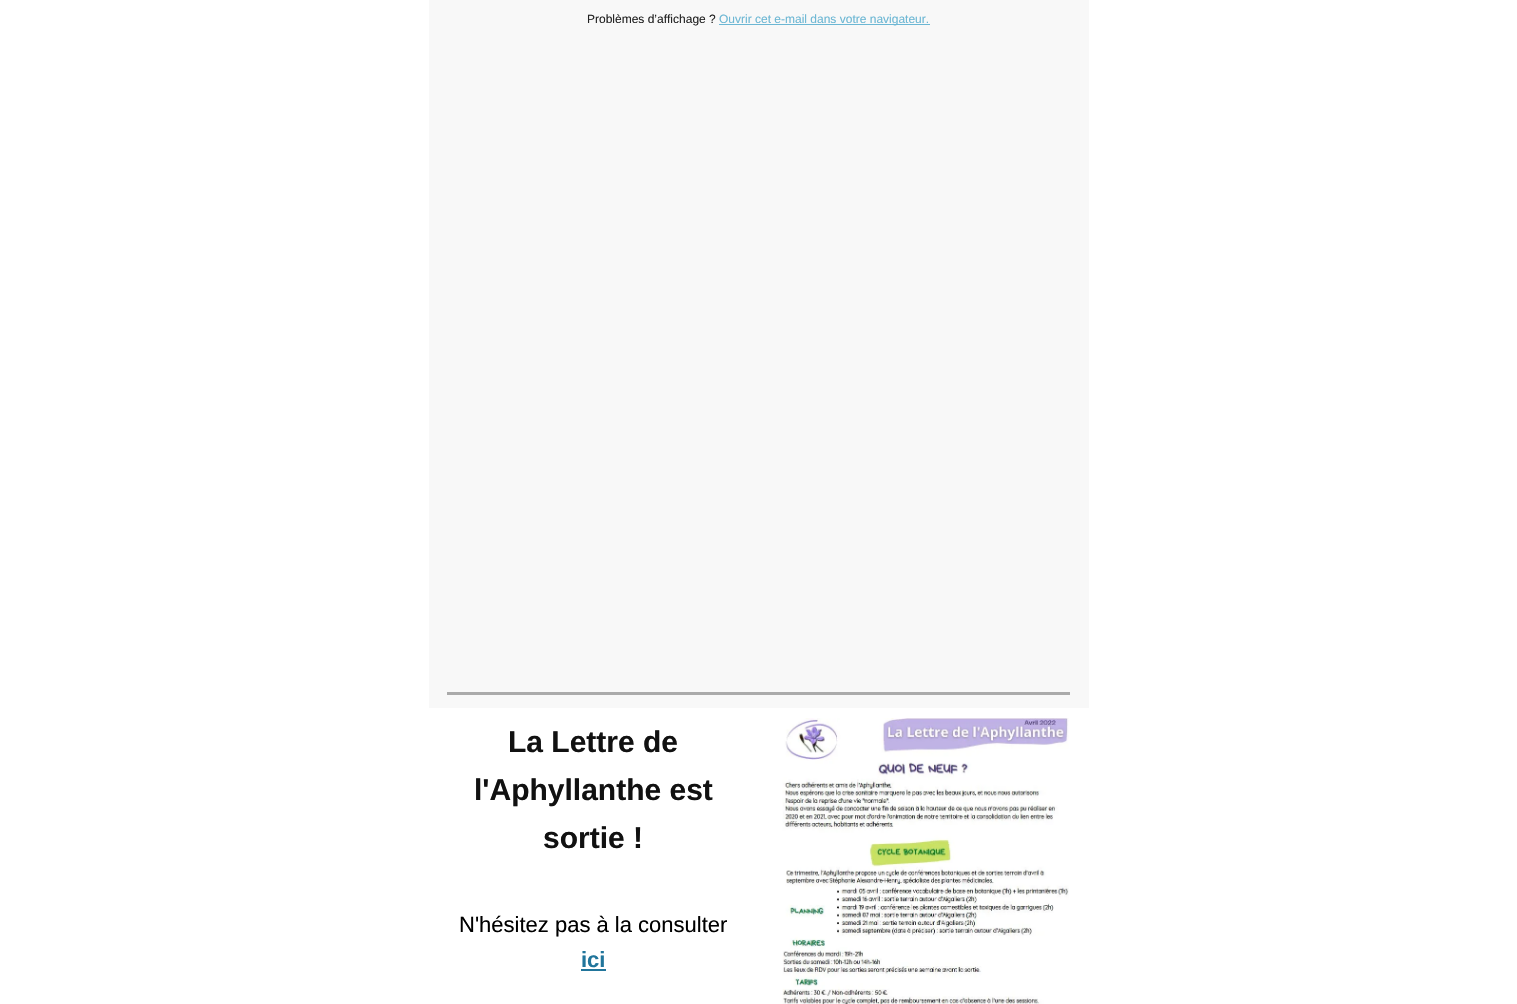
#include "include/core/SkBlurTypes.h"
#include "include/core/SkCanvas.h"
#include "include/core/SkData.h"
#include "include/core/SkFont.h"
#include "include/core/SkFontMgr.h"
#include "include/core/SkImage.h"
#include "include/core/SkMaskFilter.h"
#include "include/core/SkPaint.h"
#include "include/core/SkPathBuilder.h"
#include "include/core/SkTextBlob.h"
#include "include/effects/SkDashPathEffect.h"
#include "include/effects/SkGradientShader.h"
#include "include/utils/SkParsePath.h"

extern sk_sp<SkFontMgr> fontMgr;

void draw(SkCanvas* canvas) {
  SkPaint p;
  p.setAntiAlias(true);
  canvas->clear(SK_ColorWHITE);
  p.setColor(SkColorSetRGB(248, 248, 248));
  canvas->drawRect(SkRect::MakeLTRB(429, 0, 1089, 708), p);
  p.setColor(SkColorSetRGB(108, 183, 212));
  canvas->drawRect(SkRect::MakeLTRB(719, 24, 930, 25), p);
  p.setColor(SkColorSetRGB(170, 170, 170));
  canvas->drawRect(SkRect::MakeLTRB(447, 692, 1070, 695), p);
  p.setColor(SkColorSetRGB(33, 117, 155));
  canvas->drawRect(SkRect::MakeLTRB(581, 969, 606, 971), p);
  canvas->drawImageRect(SkImages::DeferredFromEncodedData(SkData::MakeFromFileName("images/1.png")), SkRect::MakeLTRB(782, 718, 1069, 1004), SkSamplingOptions());
  SkFont font1(fontMgr->matchFamilyStyle("Liberation Sans", SkFontStyle::Normal()), 12);
  font1.setSubpixel(true);
  p.setColor(SkColorSetRGB(34, 34, 34));
  canvas->drawString("Problèmes d’affichage ?", 587, 23, font1, p);
  p.setColor(SkColorSetRGB(108, 183, 212));
  canvas->drawString("Ouvrir cet e-mail dans votre navigateur.", 719, 23, font1, p);
  SkFont font2(fontMgr->matchFamilyStyle("Liberation Sans", SkFontStyle::Bold()), 30);
  font2.setSubpixel(true);
  p.setColor(SkColorSetRGB(17, 17, 17));
  canvas->drawString("La Lettre de", 508, 752, font2, p);
  canvas->drawString("l'Aphyllanthe est", 474, 800, font2, p);
  canvas->drawString("sortie !", 543, 848, font2, p);
  SkFont font3(fontMgr->matchFamilyStyle("Liberation Sans", SkFontStyle::Normal()), 22);
  font3.setSubpixel(true);
  p.setColor(SK_ColorBLACK);
  canvas->drawString("N'hésitez pas à la consulter", 459, 932, font3, p);
  SkFont font4(fontMgr->matchFamilyStyle("Liberation Sans", SkFontStyle::Bold()), 22);
  font4.setSubpixel(true);
  p.setColor(SkColorSetRGB(33, 117, 155));
  canvas->drawString("ici", 581, 967, font4, p);
}
